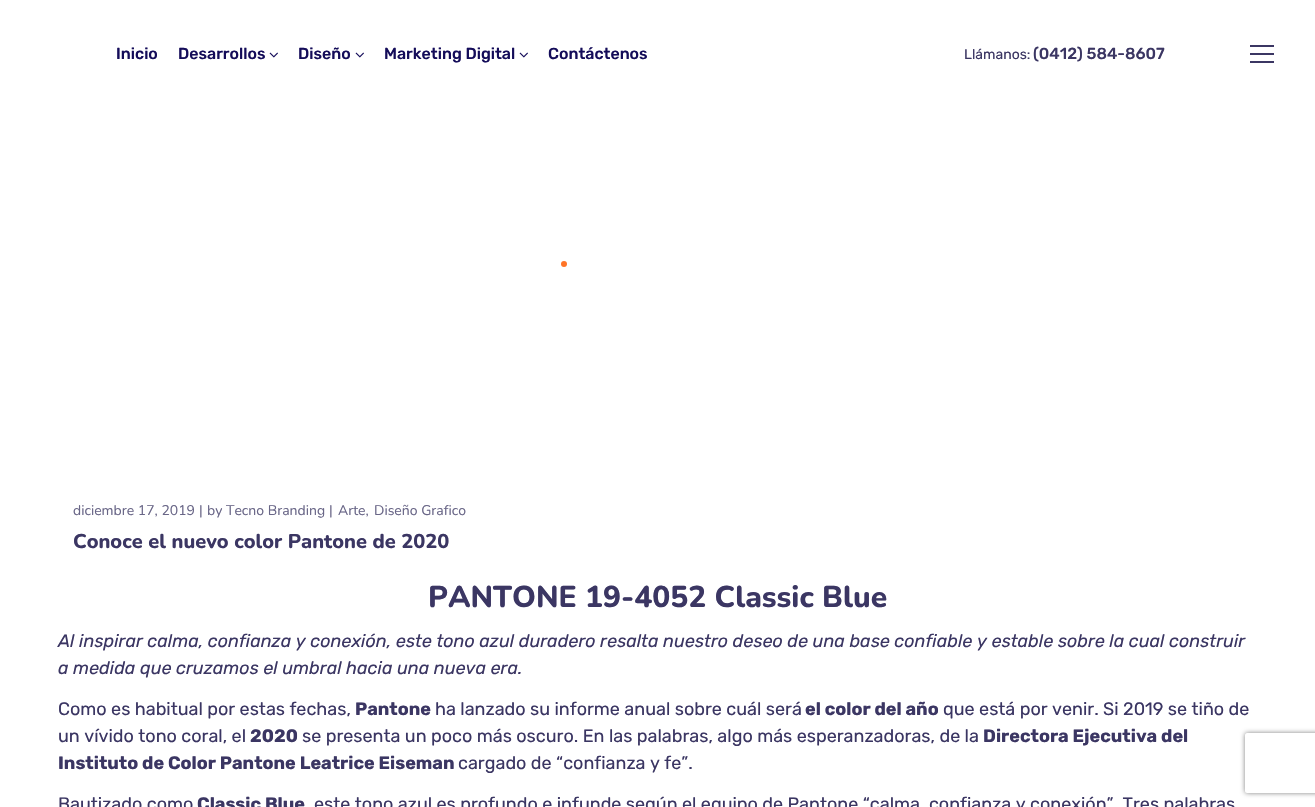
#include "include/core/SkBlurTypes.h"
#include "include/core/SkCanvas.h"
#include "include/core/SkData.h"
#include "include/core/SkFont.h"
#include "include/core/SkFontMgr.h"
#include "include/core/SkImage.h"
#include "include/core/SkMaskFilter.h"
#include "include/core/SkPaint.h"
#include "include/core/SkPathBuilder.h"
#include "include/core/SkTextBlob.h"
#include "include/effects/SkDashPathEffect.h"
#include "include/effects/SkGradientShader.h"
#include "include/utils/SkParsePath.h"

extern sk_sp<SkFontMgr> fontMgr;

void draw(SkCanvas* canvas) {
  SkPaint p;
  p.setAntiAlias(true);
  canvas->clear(SK_ColorWHITE);
  canvas->drawImageRect(SkImages::DeferredFromEncodedData(SkData::MakeFromFileName("images/1.png")), SkRect::MakeLTRB(269, 52, 278, 58), SkSamplingOptions());
  canvas->drawImageRect(SkImages::DeferredFromEncodedData(SkData::MakeFromFileName("images/1.png")), SkRect::MakeLTRB(355, 52, 364, 58), SkSamplingOptions());
  canvas->drawImageRect(SkImages::DeferredFromEncodedData(SkData::MakeFromFileName("images/1.png")), SkRect::MakeLTRB(519, 52, 528, 58), SkSamplingOptions());
  p.setColor(SkColorSetRGB(59, 54, 99));
  canvas->drawRect(SkRect::MakeLTRB(1250, 45, 1274, 47), p);
  canvas->drawRect(SkRect::MakeLTRB(1250, 53, 1274, 55), p);
  canvas->drawRect(SkRect::MakeLTRB(1250, 61, 1274, 63), p);
  p.setColor(SkColorSetRGB(255, 116, 38));
  canvas->drawCircle(564, 264, 3, p);
  canvas->save();
  canvas->clipPath(SkPathBuilder(SkPathFillType::kEvenOdd).moveTo(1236, 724).lineTo(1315, 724).lineTo(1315, 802).lineTo(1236, 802).close().moveTo(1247, 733).lineTo(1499, 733).cubicTo(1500, 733, 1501, 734, 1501, 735).lineTo(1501, 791).cubicTo(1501, 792, 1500, 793, 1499, 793).lineTo(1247, 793).cubicTo(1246, 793, 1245, 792, 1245, 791).lineTo(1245, 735).cubicTo(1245, 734, 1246, 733, 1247, 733).close().detach(), true);
  p.setColor(SkColorSetRGB(128, 128, 128));
  p.setMaskFilter(SkMaskFilter::MakeBlur(kNormal_SkBlurStyle, 2.5f));
  canvas->drawRoundRect(SkRect::MakeLTRB(1245, 733, 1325, 793), 2, 2, p);
  p.setMaskFilter(nullptr);
  canvas->restore();
  SkFont font1(fontMgr->matchFamilyStyle("Rubik", SkFontStyle(500, SkFontStyle::kNormal_Width, SkFontStyle::kUpright_Slant)), 16);
  font1.setSubpixel(true);
  p.setColor(SkColorSetRGB(20, 12, 89));
  canvas->drawString("Inicio", 116, 59, font1, p);
  canvas->drawString("Desarrollos", 178, 59, font1, p);
  canvas->drawString("Diseño", 298, 59, font1, p);
  canvas->drawString("Marketing Digital", 384, 59, font1, p);
  canvas->drawString("Contáctenos", 548, 59, font1, p);
  SkFont font2(fontMgr->matchFamilyStyle("Rubik", SkFontStyle::Normal()), 14);
  font2.setSubpixel(true);
  p.setColor(SkColorSetRGB(59, 54, 99));
  canvas->drawString("Llámanos:", 964, 59, font2, p);
  canvas->drawString("(0412) 584-8607", 1033, 59, font1, p);
  SkFont font3(fontMgr->matchFamilyStyle("Nunito", SkFontStyle::Normal()), 14);
  font3.setSubpixel(true);
  p.setColor(SkColorSetRGB(105, 102, 135));
  canvas->drawString("diciembre 17, 2019", 73, 515, font3, p);
  canvas->drawString("|", 199, 515, font3, p);
  canvas->drawString("by Tecno Branding", 207, 515, font3, p);
  canvas->drawString("|", 329, 515, font3, p);
  canvas->drawString("Arte,", 338, 515, font3, p);
  canvas->drawString("Diseño Grafico", 374, 515, font3, p);
  SkFont font4(fontMgr->matchFamilyStyle("Nunito", SkFontStyle(800, SkFontStyle::kNormal_Width, SkFontStyle::kUpright_Slant)), 20);
  font4.setSubpixel(true);
  p.setColor(SkColorSetRGB(59, 54, 99));
  canvas->drawString("Conoce el nuevo color Pantone de 2020", 73, 548, font4, p);
  SkFont font5(fontMgr->matchFamilyStyle("Nunito", SkFontStyle(800, SkFontStyle::kNormal_Width, SkFontStyle::kUpright_Slant)), 30);
  font5.setSubpixel(true);
  canvas->drawString("PANTONE 19-4052 Classic Blue", 428, 607, font5, p);
  SkFont font6(fontMgr->matchFamilyStyle("Rubik", SkFontStyle::Italic()), 18);
  font6.setSubpixel(true);
  canvas->drawString("Al inspirar calma, confianza y conexión, este tono azul duradero resalta nuestro deseo de una base confiable y estable sobre la cual construir", 58, 647, font6, p);
  canvas->drawString("a medida que cruzamos el umbral hacia una nueva era.", 58, 674, font6, p);
  SkFont font7(fontMgr->matchFamilyStyle("Rubik", SkFontStyle::Normal()), 18);
  font7.setSubpixel(true);
  canvas->drawString("Como es habitual por estas fechas,", 58, 715, font7, p);
  SkFont font8(fontMgr->matchFamilyStyle("Rubik", SkFontStyle::Bold()), 18);
  font8.setSubpixel(true);
  canvas->drawString("Pantone", 355, 715, font8, p);
  canvas->drawString("ha lanzado su informe anual sobre cuál será", 435, 715, font7, p);
  canvas->drawString("el color del año", 805, 715, font8, p);
  canvas->drawString("que está por venir. Si 2019 se tiño de", 943, 715, font7, p);
  canvas->drawString("un vívido tono coral, el", 58, 742, font7, p);
  canvas->drawString("2020", 250, 742, font8, p);
  canvas->drawString("se presenta un poco más oscuro. En las palabras, algo más esperanzadoras, de la", 302, 742, font7, p);
  canvas->drawString("Directora Ejecutiva del", 983, 742, font8, p);
  canvas->drawString("Instituto de Color Pantone Leatrice Eiseman", 58, 769, font8, p);
  canvas->drawString("cargado de “confianza y fe”.", 458, 769, font7, p);
  canvas->drawString("Bautizado como", 58, 810, font7, p);
  canvas->drawString("Classic Blue", 197, 810, font8, p);
  canvas->drawString("este tono azul es profundo e infunde según el equipo de Pantone “calma, confianza y conexión”. Tres palabras", 314, 810, font7, p);
}
